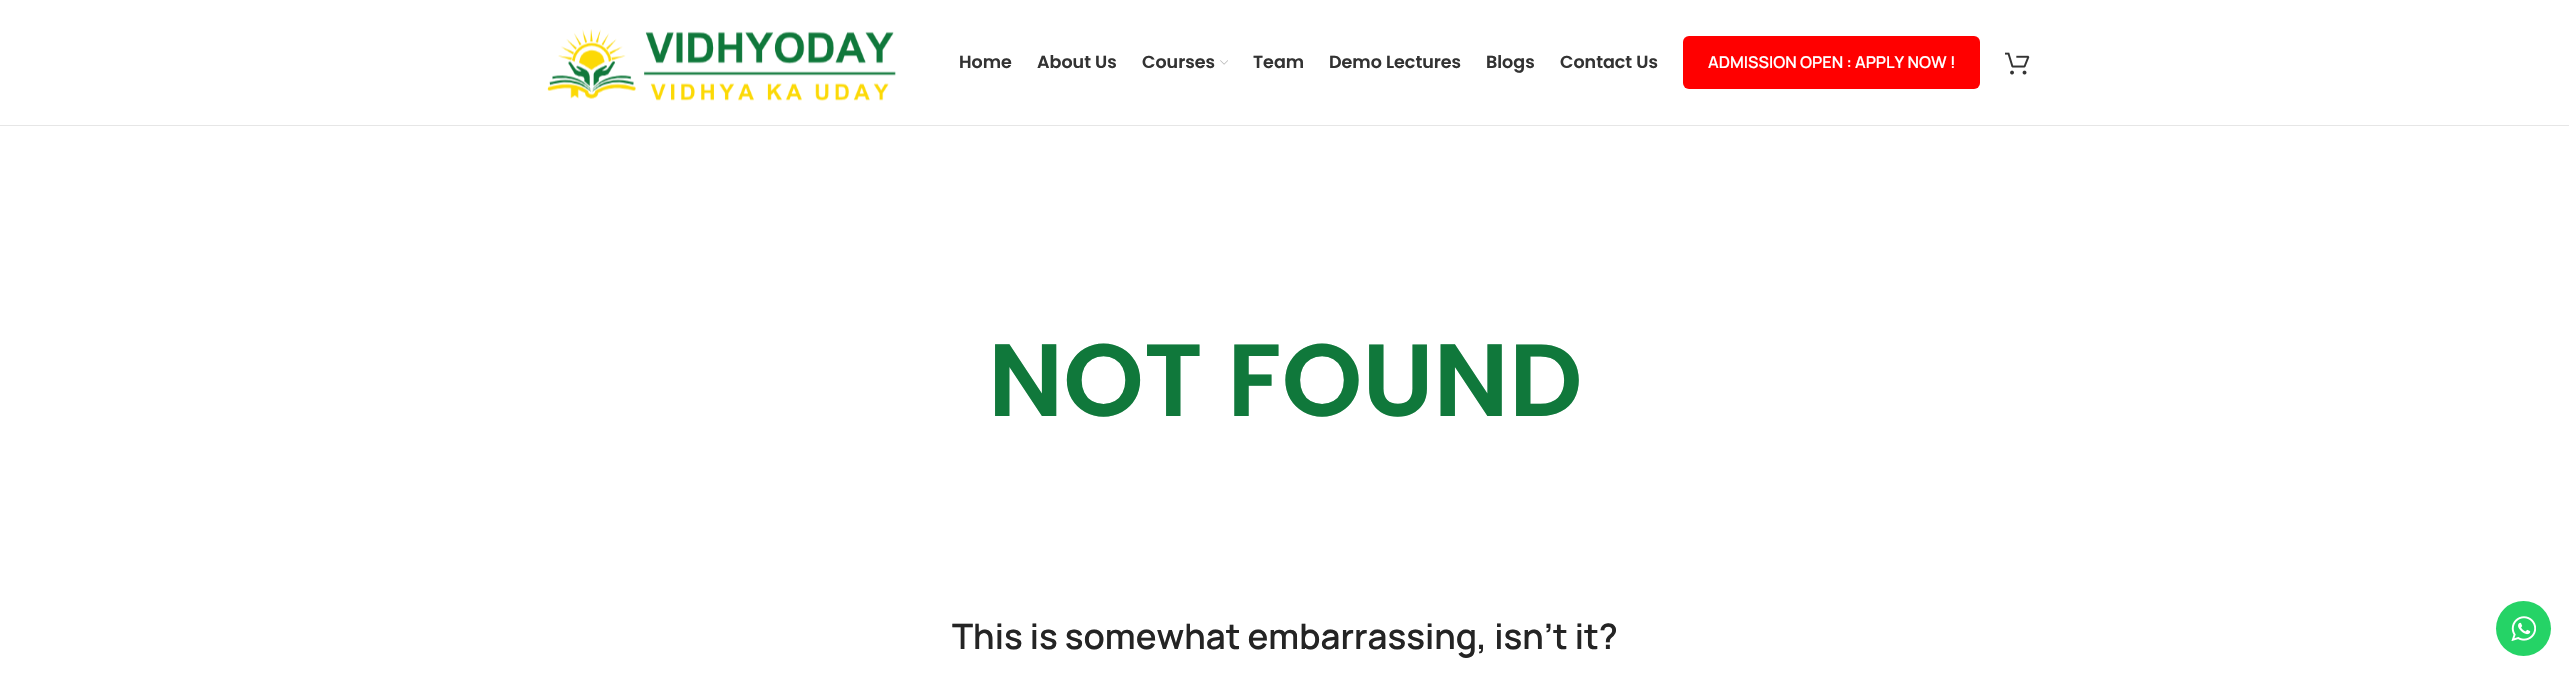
#include "include/core/SkBlurTypes.h"
#include "include/core/SkCanvas.h"
#include "include/core/SkData.h"
#include "include/core/SkFont.h"
#include "include/core/SkFontMgr.h"
#include "include/core/SkImage.h"
#include "include/core/SkMaskFilter.h"
#include "include/core/SkPaint.h"
#include "include/core/SkPathBuilder.h"
#include "include/core/SkTextBlob.h"
#include "include/effects/SkDashPathEffect.h"
#include "include/effects/SkGradientShader.h"
#include "include/utils/SkParsePath.h"

extern sk_sp<SkFontMgr> fontMgr;

void draw(SkCanvas* canvas) {
  SkPaint p;
  p.setAntiAlias(true);
  canvas->clear(SK_ColorWHITE);
  p.setColor(SkColorSetRGB(230, 230, 230));
  canvas->drawRect(SkRect::MakeLTRB(0, 125, 2569, 126), p);
  canvas->drawImageRect(SkImages::DeferredFromEncodedData(SkData::MakeFromFileName("images/1.png")), SkRect::MakeLTRB(547, 29, 896, 101), SkSamplingOptions());
  canvas->drawImageRect(SkImages::DeferredFromEncodedData(SkData::MakeFromFileName("images/2.png")), SkRect::MakeLTRB(1220, 60, 1228, 65), SkSamplingOptions());
  p.setColor(SkColorSetRGB(255, 0, 0));
  canvas->drawRoundRect(SkRect::MakeLTRB(1683, 36, 1980, 89), 6, 6, p);
  canvas->drawImageRect(SkImages::DeferredFromEncodedData(SkData::MakeFromFileName("images/3.png")), SkRect::MakeLTRB(2005, 52, 2030, 75), SkSamplingOptions());
  p.setColor(SkColorSetRGB(37, 211, 102));
  canvas->drawCircle(2523.5f, 628.5f, 27.5f, p);
  canvas->drawImageRect(SkImages::DeferredFromEncodedData(SkData::MakeFromFileName("images/4.png")), SkRect::MakeLTRB(2511, 616, 2536, 641), SkSamplingOptions());
  SkFont font1(fontMgr->matchFamilyStyle("Poppins", SkFontStyle(600, SkFontStyle::kNormal_Width, SkFontStyle::kUpright_Slant)), 17.5f);
  font1.setSubpixel(true);
  p.setColor(SkColorSetRGB(51, 51, 51));
  canvas->drawString("Home", 959, 68, font1, p);
  canvas->drawString("About Us", 1037, 68, font1, p);
  canvas->drawString("Courses", 1142, 68, font1, p);
  canvas->drawString("Team", 1253, 68, font1, p);
  canvas->drawString("Demo Lectures", 1329, 68, font1, p);
  canvas->drawString("Blogs", 1486, 68, font1, p);
  canvas->drawString("Contact Us", 1560, 68, font1, p);
  SkFont font2(fontMgr->matchFamilyStyle("Manrope", SkFontStyle(600, SkFontStyle::kNormal_Width, SkFontStyle::kUpright_Slant)), 16.25f);
  font2.setSubpixel(true);
  p.setColor(SK_ColorWHITE);
  canvas->drawString("ADMISSION OPEN : APPLY NOW !", 1708, 68, font2, p);
  SkFont font3(fontMgr->matchFamilyStyle("Poppins", SkFontStyle(600, SkFontStyle::kNormal_Width, SkFontStyle::kUpright_Slant)), 102.5f);
  font3.setSubpixel(true);
  p.setColor(SkColorSetRGB(16, 120, 59));
  canvas->drawString("NOT FOUND", 988, 416, font3, p);
  SkFont font4(fontMgr->matchFamilyStyle("Manrope", SkFontStyle(600, SkFontStyle::kNormal_Width, SkFontStyle::kUpright_Slant)), 35);
  font4.setSubpixel(true);
  p.setColor(SkColorSetRGB(36, 36, 36));
  canvas->drawString("This is somewhat embarrassing, isn’t it?", 952, 649, font4, p);
}
